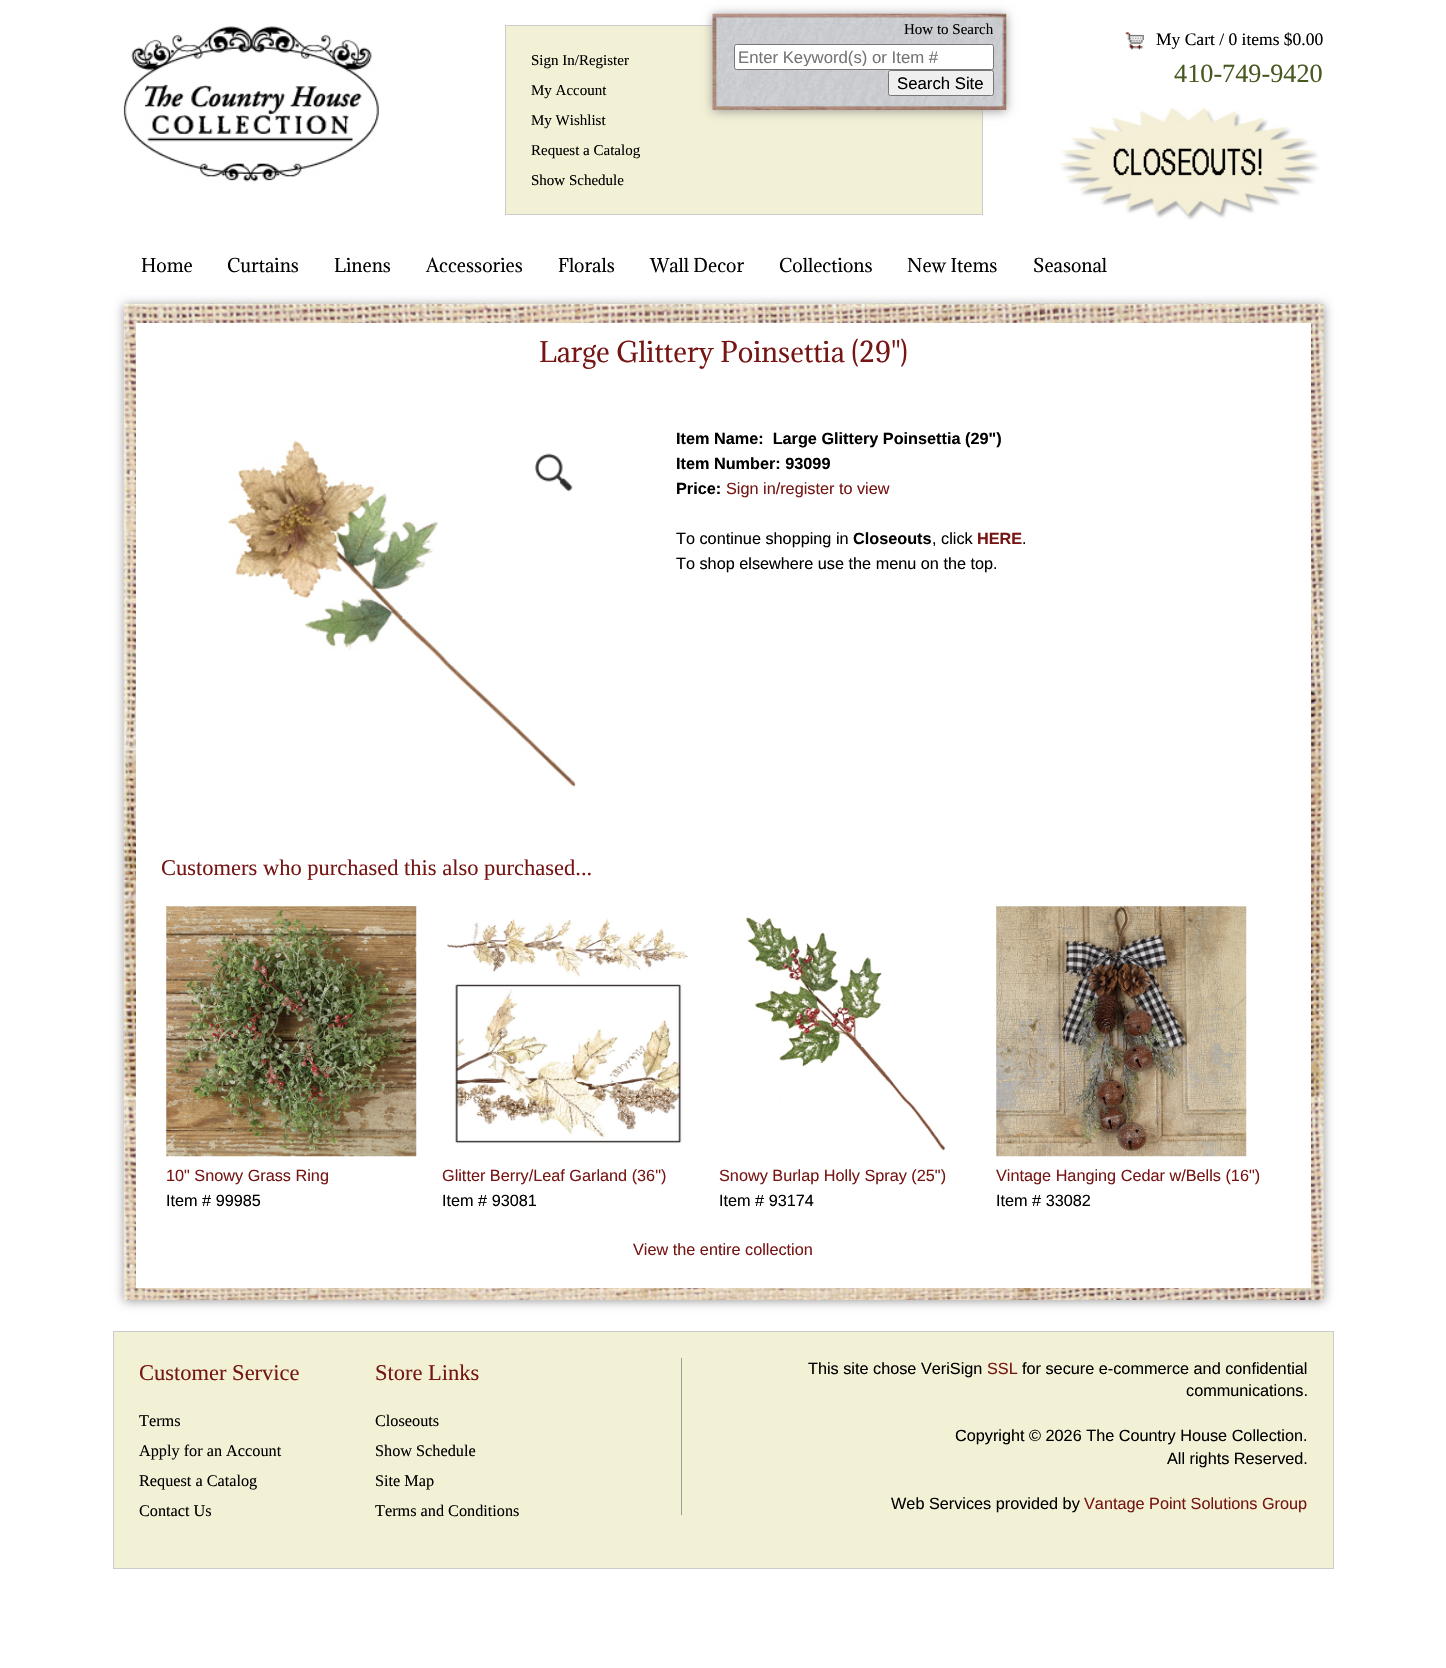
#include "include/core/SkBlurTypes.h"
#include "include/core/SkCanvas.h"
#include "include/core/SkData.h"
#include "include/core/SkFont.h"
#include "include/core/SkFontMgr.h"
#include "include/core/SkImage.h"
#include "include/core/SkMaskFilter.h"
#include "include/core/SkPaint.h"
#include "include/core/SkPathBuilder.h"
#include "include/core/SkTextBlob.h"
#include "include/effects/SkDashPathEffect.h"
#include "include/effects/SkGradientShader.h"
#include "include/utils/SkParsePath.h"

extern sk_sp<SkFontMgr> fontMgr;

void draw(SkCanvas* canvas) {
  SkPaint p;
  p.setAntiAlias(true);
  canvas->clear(SK_ColorWHITE);
  canvas->drawImageRect(SkImages::DeferredFromEncodedData(SkData::MakeFromFileName("images/1.png")), SkRect::MakeLTRB(123, 26, 379, 182), SkSamplingOptions());
  p.setColor(SkColorSetRGB(242, 240, 213));
  canvas->drawRect(SkRect::MakeLTRB(505.5f, 25.5f, 982.5f, 214.5f), p);
  p.setStyle(SkPaint::kStroke_Style);
  p.setStrokeWidth(1);
  p.setColor(SkColorSetRGB(204, 204, 204));
  canvas->drawRect(SkRect::MakeLTRB(505.5f, 25.5f, 982.5f, 214.5f), p);
  p.setStyle(SkPaint::kFill_Style);
  p.setColor(SkColorSetRGB(153, 153, 153));
  p.setMaskFilter(SkMaskFilter::MakeBlur(kNormal_SkBlurStyle, 5));
  canvas->drawRect(SkRect::MakeLTRB(713, 15, 1006, 111), p);
  p.setMaskFilter(nullptr);
  canvas->drawImageRect(SkImages::DeferredFromEncodedData(SkData::MakeFromFileName("images/2.png")), SkRect::MakeLTRB(712, 13, 1007, 110), SkSamplingOptions());
  p.setColor(SK_ColorWHITE);
  canvas->drawRoundRect(SkRect::MakeLTRB(734.5f, 44.5f, 993.5f, 69.5f), 2, 2, p);
  p.setStyle(SkPaint::kStroke_Style);
  p.setColor(SkColorSetRGB(118, 118, 118));
  canvas->drawRoundRect(SkRect::MakeLTRB(734.5f, 44.5f, 993.5f, 69.5f), 2, 2, p);
  p.setStyle(SkPaint::kFill_Style);
  p.setColor(SkColorSetRGB(239, 239, 239));
  canvas->drawRoundRect(SkRect::MakeLTRB(888.5f, 70.5f, 993.5f, 95.5f), 2, 2, p);
  p.setStyle(SkPaint::kStroke_Style);
  p.setColor(SkColorSetRGB(118, 118, 118));
  canvas->drawRoundRect(SkRect::MakeLTRB(888.5f, 70.5f, 993.5f, 95.5f), 2, 2, p);
  canvas->drawImageRect(SkImages::DeferredFromEncodedData(SkData::MakeFromFileName("images/3.png")), SkRect::MakeLTRB(1125, 32, 1144, 50), SkSamplingOptions());
  canvas->drawImageRect(SkImages::DeferredFromEncodedData(SkData::MakeFromFileName("images/4.png")), SkRect::MakeLTRB(1059, 107, 1320, 220), SkSamplingOptions());
  p.setStyle(SkPaint::kFill_Style);
  p.setColor(SkColorSetRGB(153, 153, 153));
  p.setMaskFilter(SkMaskFilter::MakeBlur(kNormal_SkBlurStyle, 5));
  canvas->drawRect(SkRect::MakeLTRB(124, 305, 1324, 1301), p);
  p.setMaskFilter(nullptr);
  canvas->drawImageRect(SkImages::DeferredFromEncodedData(SkData::MakeFromFileName("images/5.png")), SkRect::MakeLTRB(123, 303, 1324, 1300), SkSamplingOptions());
  p.setColor(SK_ColorWHITE);
  canvas->drawRect(SkRect::MakeLTRB(136, 323, 1311, 1288), p);
  canvas->drawImageRect(SkImages::DeferredFromEncodedData(SkData::MakeFromFileName("images/6.png")), SkRect::MakeLTRB(228, 440, 576, 787), SkSamplingOptions());
  canvas->drawImageRect(SkImages::DeferredFromEncodedData(SkData::MakeFromFileName("images/7.png")), SkRect::MakeLTRB(534, 453, 573, 492), SkSamplingOptions());
  canvas->drawImageRect(SkImages::DeferredFromEncodedData(SkData::MakeFromFileName("images/8.png")), SkRect::MakeLTRB(166, 906, 417, 1157), SkSamplingOptions());
  canvas->drawImageRect(SkImages::DeferredFromEncodedData(SkData::MakeFromFileName("images/9.png")), SkRect::MakeLTRB(447, 918, 688, 1144), SkSamplingOptions());
  canvas->drawImageRect(SkImages::DeferredFromEncodedData(SkData::MakeFromFileName("images/10.png")), SkRect::MakeLTRB(745, 917, 946, 1151), SkSamplingOptions());
  canvas->drawImageRect(SkImages::DeferredFromEncodedData(SkData::MakeFromFileName("images/11.png")), SkRect::MakeLTRB(996, 906, 1247, 1157), SkSamplingOptions());
  p.setColor(SkColorSetRGB(242, 240, 213));
  canvas->drawRect(SkRect::MakeLTRB(113.5f, 1331.5f, 1333.5f, 1568.5f), p);
  p.setStyle(SkPaint::kStroke_Style);
  p.setColor(SkColorSetRGB(204, 204, 204));
  canvas->drawRect(SkRect::MakeLTRB(113.5f, 1331.5f, 1333.5f, 1568.5f), p);
  p.setStyle(SkPaint::kFill_Style);
  p.setColor(SkColorSetRGB(158, 158, 158));
  canvas->drawRect(SkRect::MakeLTRB(681, 1358, 682, 1515), p);
  SkFont font1(fontMgr->matchFamilyStyle("Liberation Serif", SkFontStyle::Normal()), 15);
  font1.setSubpixel(true);
  p.setColor(SK_ColorBLACK);
  canvas->drawString("Sign In/Register", 531, 65, font1, p);
  canvas->drawString("My Account", 531, 95, font1, p);
  canvas->drawString("My Wishlist", 531, 125, font1, p);
  canvas->drawString("Request a Catalog", 531, 155, font1, p);
  canvas->drawString("Show Schedule", 531, 185, font1, p);
  canvas->drawString("How to Search", 904, 34, font1, p);
  canvas->save();
  canvas->clipRect(SkRect::MakeLTRB(739, 48, 989, 66));
  SkFont font2(fontMgr->matchFamilyStyle("Liberation Sans", SkFontStyle::Normal()), 16.75f);
  font2.setSubpixel(true);
  p.setColor(SkColorSetRGB(117, 117, 117));
  canvas->drawString("Enter Keyword(s) or Item #", 738, 63, font2, p);
  canvas->restore();
  p.setColor(SK_ColorBLACK);
  canvas->drawString("Search Site", 897, 89, font2, p);
  SkFont font3(fontMgr->matchFamilyStyle("Liberation Serif", SkFontStyle::Normal()), 17.5f);
  font3.setSubpixel(true);
  canvas->drawString("My Cart / 0 items $0.00", 1156, 45, font3, p);
  SkFont font4(fontMgr->matchFamilyStyle("Liberation Serif", SkFontStyle::Normal()), 26.25f);
  font4.setSubpixel(true);
  p.setColor(SkColorSetRGB(71, 89, 33));
  canvas->drawString("410-749-9420", 1174, 82, font4, p);
  SkFont font5(fontMgr->matchFamilyStyle("Adamina", SkFontStyle::Normal()), 17.5f);
  font5.setSubpixel(true);
  p.setColor(SK_ColorBLACK);
  canvas->drawString("Home", 141, 272, font5, p);
  canvas->drawString("Curtains", 227, 272, font5, p);
  canvas->drawString("Linens", 334, 272, font5, p);
  canvas->drawString("Accessories", 426, 272, font5, p);
  canvas->drawString("Florals", 558, 272, font5, p);
  canvas->drawString("Wall Decor", 650, 272, font5, p);
  canvas->drawString("Collections", 779, 272, font5, p);
  canvas->drawString("New Items", 907, 272, font5, p);
  canvas->drawString("Seasonal", 1033, 272, font5, p);
  SkFont font6(fontMgr->matchFamilyStyle("Adamina", SkFontStyle::Normal()), 26.25f);
  font6.setSubpixel(true);
  p.setColor(SkColorSetRGB(118, 22, 20));
  canvas->drawString("Large Glittery Poinsettia (29\")", 539, 362, font6, p);
  SkFont font7(fontMgr->matchFamilyStyle("Liberation Sans", SkFontStyle::Bold()), 16.25f);
  font7.setSubpixel(true);
  p.setColor(SK_ColorBLACK);
  canvas->drawString("Item Name:  Large Glittery Poinsettia (29\")", 676, 444, font7, p);
  canvas->drawString("Item Number: 93099", 676, 469, font7, p);
  canvas->drawString("Price:", 676, 494, font7, p);
  SkFont font8(fontMgr->matchFamilyStyle("Liberation Sans", SkFontStyle::Normal()), 16.25f);
  font8.setSubpixel(true);
  p.setColor(SkColorSetRGB(118, 22, 20));
  canvas->drawString("Sign in/register to view", 726, 494, font8, p);
  p.setColor(SK_ColorBLACK);
  canvas->drawString("To continue shopping in", 676, 544, font8, p);
  canvas->drawString("Closeouts", 853, 544, font7, p);
  canvas->drawString(", click", 932, 544, font8, p);
  p.setColor(SkColorSetRGB(118, 22, 20));
  canvas->drawString("HERE", 977, 544, font7, p);
  p.setColor(SK_ColorBLACK);
  canvas->drawString(".", 1022, 544, font8, p);
  canvas->drawString("To shop elsewhere use the menu on the top.", 676, 569, font8, p);
  SkFont font9(fontMgr->matchFamilyStyle("Liberation Serif", SkFontStyle::Normal()), 22.5f);
  font9.setSubpixel(true);
  p.setColor(SkColorSetRGB(118, 22, 20));
  canvas->drawString("Customers who purchased this also purchased...", 161, 875, font9, p);
  canvas->drawString("10\" Snowy Grass Ring", 166, 1181, font8, p);
  p.setColor(SK_ColorBLACK);
  canvas->drawString("Item # 99985", 166, 1206, font8, p);
  p.setColor(SkColorSetRGB(118, 22, 20));
  canvas->drawString("Glitter Berry/Leaf Garland (36\")", 442, 1181, font8, p);
  p.setColor(SK_ColorBLACK);
  canvas->drawString("Item # 93081", 442, 1206, font8, p);
  p.setColor(SkColorSetRGB(118, 22, 20));
  canvas->drawString("Snowy Burlap Holly Spray (25\")", 719, 1181, font8, p);
  p.setColor(SK_ColorBLACK);
  canvas->drawString("Item # 93174", 719, 1206, font8, p);
  p.setColor(SkColorSetRGB(118, 22, 20));
  canvas->drawString("Vintage Hanging Cedar w/Bells (16\")", 996, 1181, font8, p);
  p.setColor(SK_ColorBLACK);
  canvas->drawString("Item # 33082", 996, 1206, font8, p);
  p.setColor(SkColorSetRGB(118, 22, 20));
  canvas->drawString("View the entire collection", 633, 1255, font8, p);
  canvas->drawString("Customer Service", 139, 1380, font9, p);
  SkFont font10(fontMgr->matchFamilyStyle("Liberation Serif", SkFontStyle::Normal()), 16.25f);
  font10.setSubpixel(true);
  p.setColor(SK_ColorBLACK);
  canvas->drawString("Terms", 139, 1426, font10, p);
  canvas->drawString("Apply for an Account", 139, 1456, font10, p);
  canvas->drawString("Request a Catalog", 139, 1486, font10, p);
  canvas->drawString("Contact Us", 139, 1516, font10, p);
  p.setColor(SkColorSetRGB(118, 22, 20));
  canvas->drawString("Store Links", 375, 1380, font9, p);
  p.setColor(SK_ColorBLACK);
  canvas->drawString("Closeouts", 375, 1426, font10, p);
  canvas->drawString("Show Schedule", 375, 1456, font10, p);
  canvas->drawString("Site Map", 375, 1486, font10, p);
  canvas->drawString("Terms and Conditions", 375, 1516, font10, p);
  canvas->drawString("This site chose VeriSign", 808, 1374, font8, p);
  p.setColor(SkColorSetRGB(118, 22, 20));
  canvas->drawString("SSL", 987, 1374, font8, p);
  p.setColor(SK_ColorBLACK);
  canvas->drawString("for secure e-commerce and confidential", 1022, 1374, font8, p);
  canvas->drawString("communications.", 1186, 1396, font8, p);
  canvas->drawString("Copyright © 2026 The Country House Collection.", 955, 1441, font8, p);
  canvas->drawString("All rights Reserved.", 1167, 1464, font8, p);
  canvas->drawString("Web Services provided by", 891, 1509, font8, p);
  p.setColor(SkColorSetRGB(118, 22, 20));
  canvas->drawString("Vantage Point Solutions Group", 1084, 1509, font8, p);
}
